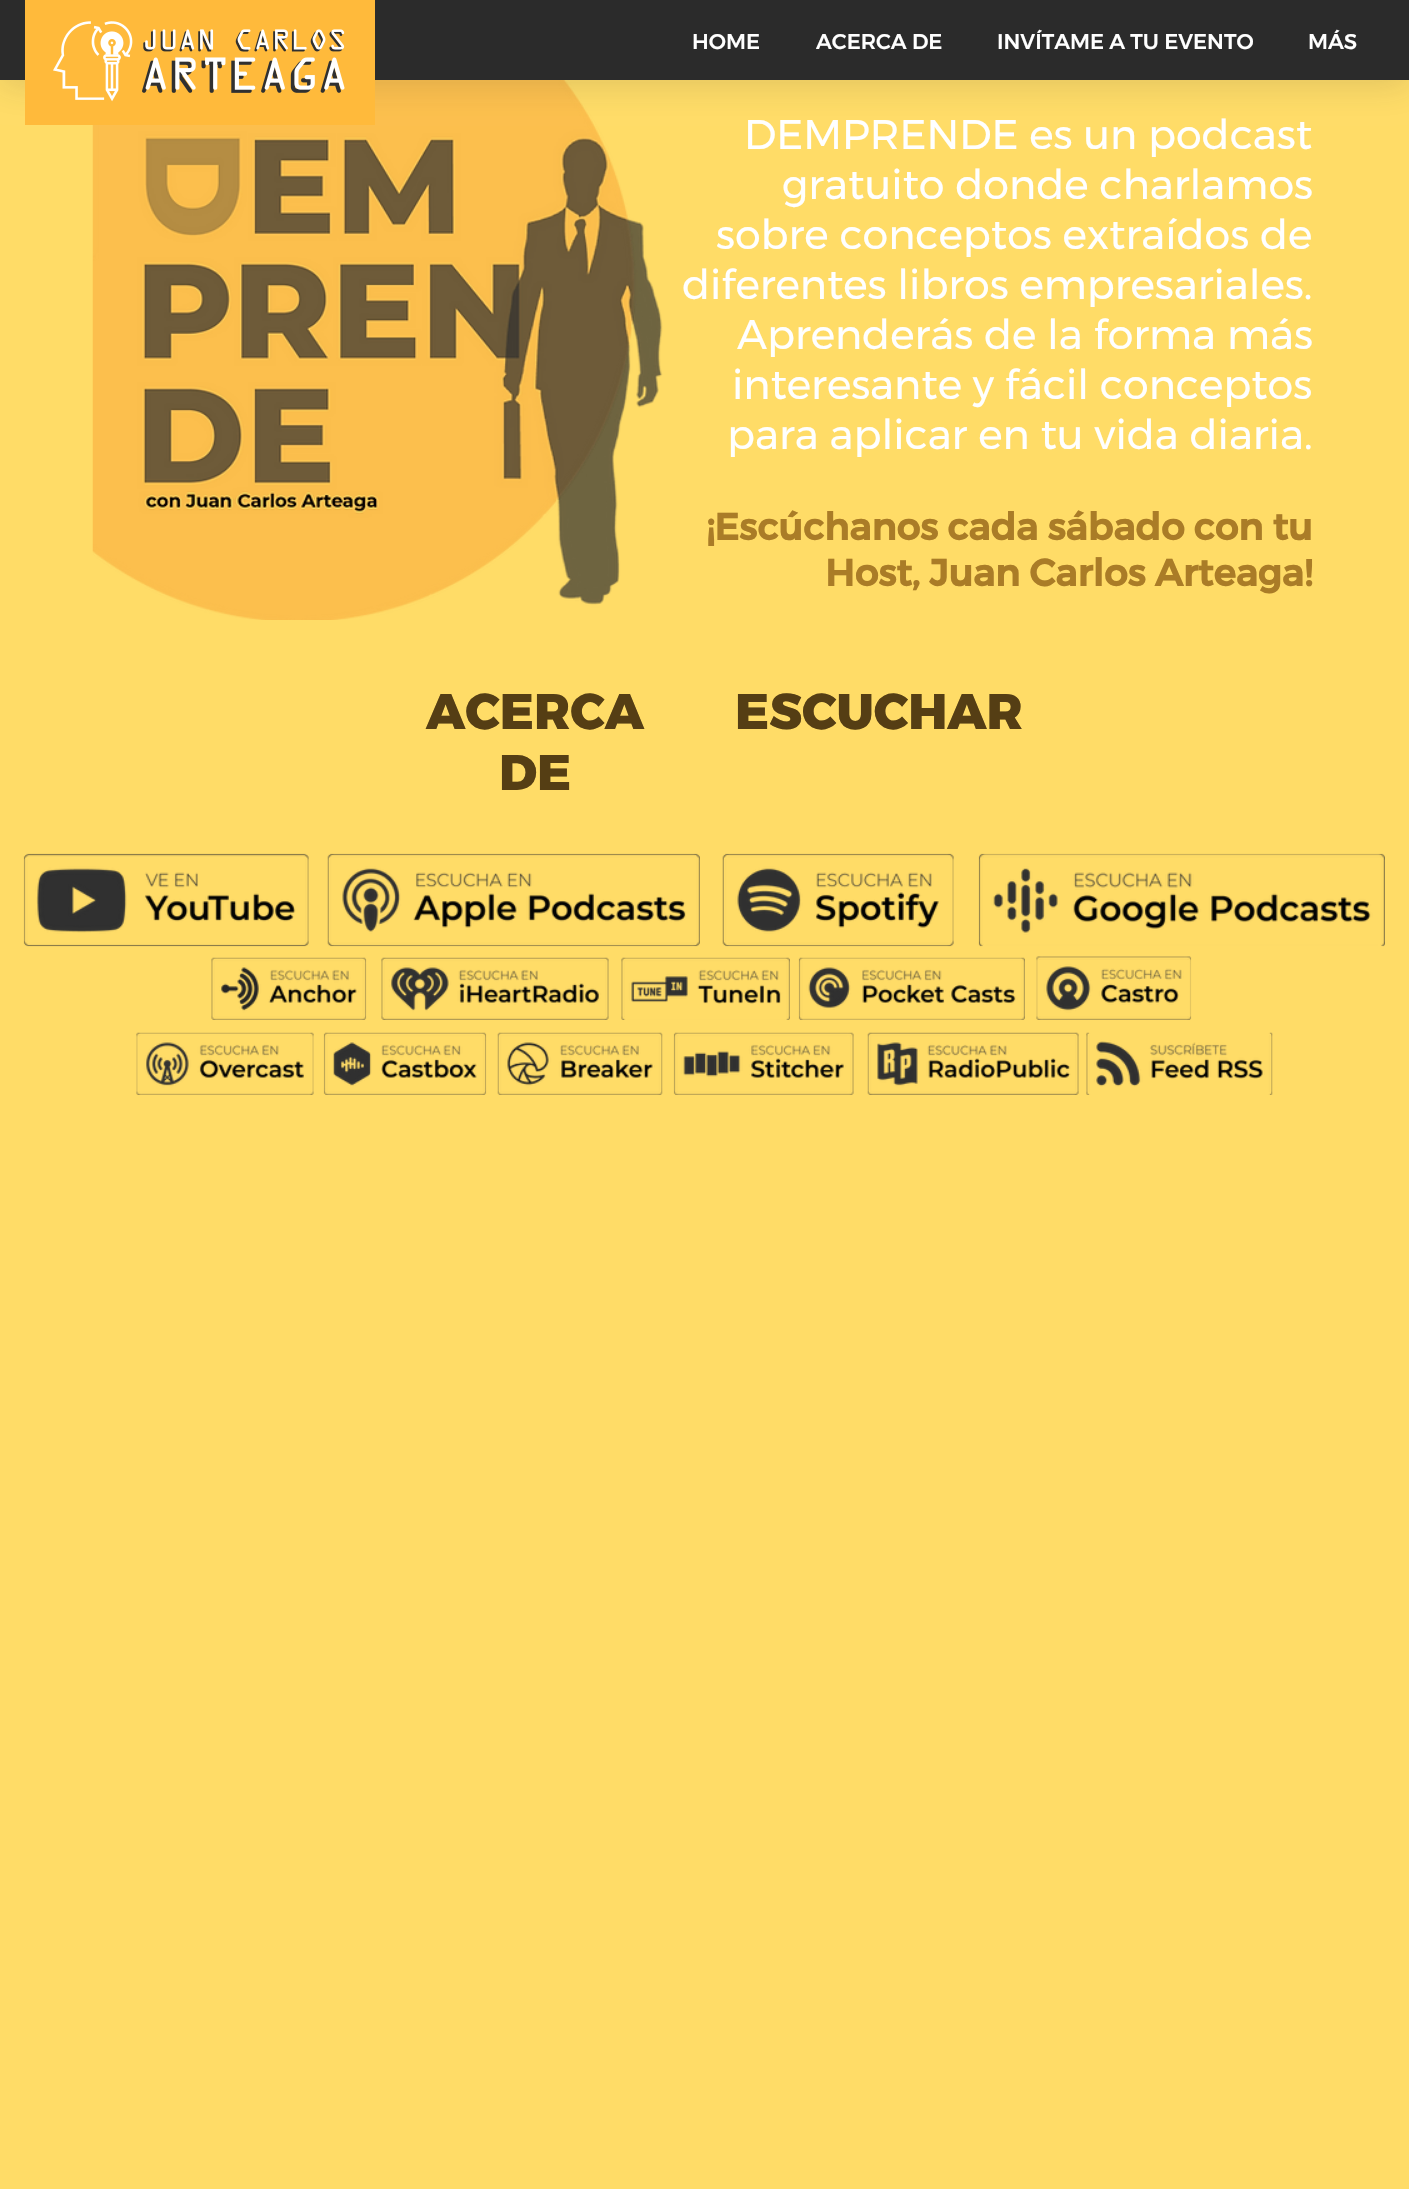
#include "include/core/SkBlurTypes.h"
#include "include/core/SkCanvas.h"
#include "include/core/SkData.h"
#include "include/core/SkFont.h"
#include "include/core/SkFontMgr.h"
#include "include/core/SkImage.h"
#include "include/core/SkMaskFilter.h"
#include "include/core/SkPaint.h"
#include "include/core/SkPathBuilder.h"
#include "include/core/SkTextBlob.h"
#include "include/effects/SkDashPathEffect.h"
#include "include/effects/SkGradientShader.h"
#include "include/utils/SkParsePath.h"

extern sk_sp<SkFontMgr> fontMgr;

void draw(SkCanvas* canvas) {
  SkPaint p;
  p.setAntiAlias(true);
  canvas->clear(SkColorSetRGB(255, 220, 103));
  canvas->drawImageRect(SkImages::DeferredFromEncodedData(SkData::MakeFromFileName("images/2.png")), SkRect::MakeLTRB(92, 80, 663, 620), SkSamplingOptions());
  p.setColor(SkColorSetARGB(38, 45, 45, 45));
  p.setMaskFilter(SkMaskFilter::MakeBlur(kNormal_SkBlurStyle, 17));
  canvas->drawRect(SkRect::MakeLTRB(0, 5, 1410, 85), p);
  p.setMaskFilter(nullptr);
  p.setColor(SkColorSetRGB(43, 43, 43));
  canvas->drawRect(SkRect::MakeLTRB(0, 0, 1409, 80), p);
  p.setColor(SkColorSetRGB(255, 186, 59));
  canvas->drawRect(SkRect::MakeLTRB(25, 0, 375, 125), p);
  canvas->drawImageRect(SkImages::DeferredFromEncodedData(SkData::MakeFromFileName("images/1.png")), SkRect::MakeLTRB(53, 21, 345, 102), SkSamplingOptions());
  canvas->drawImageRect(SkImages::DeferredFromEncodedData(SkData::MakeFromFileName("images/3.png")), SkRect::MakeLTRB(23, 853, 309, 947), SkSamplingOptions());
  canvas->drawImageRect(SkImages::DeferredFromEncodedData(SkData::MakeFromFileName("images/4.png")), SkRect::MakeLTRB(327, 853, 700, 947), SkSamplingOptions());
  canvas->drawImageRect(SkImages::DeferredFromEncodedData(SkData::MakeFromFileName("images/5.png")), SkRect::MakeLTRB(722, 853, 954, 947), SkSamplingOptions());
  canvas->drawImageRect(SkImages::DeferredFromEncodedData(SkData::MakeFromFileName("images/6.png")), SkRect::MakeLTRB(978, 853, 1385, 947), SkSamplingOptions());
  canvas->drawImageRect(SkImages::DeferredFromEncodedData(SkData::MakeFromFileName("images/7.png")), SkRect::MakeLTRB(211, 957, 367, 1020), SkSamplingOptions());
  canvas->drawImageRect(SkImages::DeferredFromEncodedData(SkData::MakeFromFileName("images/8.png")), SkRect::MakeLTRB(381, 957, 609, 1020), SkSamplingOptions());
  canvas->drawImageRect(SkImages::DeferredFromEncodedData(SkData::MakeFromFileName("images/9.png")), SkRect::MakeLTRB(621, 957, 790, 1020), SkSamplingOptions());
  canvas->drawImageRect(SkImages::DeferredFromEncodedData(SkData::MakeFromFileName("images/10.png")), SkRect::MakeLTRB(798, 957, 1025, 1020), SkSamplingOptions());
  canvas->drawImageRect(SkImages::DeferredFromEncodedData(SkData::MakeFromFileName("images/11.png")), SkRect::MakeLTRB(1036, 956, 1192, 1020), SkSamplingOptions());
  canvas->drawImageRect(SkImages::DeferredFromEncodedData(SkData::MakeFromFileName("images/12.png")), SkRect::MakeLTRB(136, 1032, 314, 1095), SkSamplingOptions());
  canvas->drawImageRect(SkImages::DeferredFromEncodedData(SkData::MakeFromFileName("images/13.png")), SkRect::MakeLTRB(323, 1032, 487, 1095), SkSamplingOptions());
  canvas->drawImageRect(SkImages::DeferredFromEncodedData(SkData::MakeFromFileName("images/14.png")), SkRect::MakeLTRB(497, 1032, 663, 1095), SkSamplingOptions());
  canvas->drawImageRect(SkImages::DeferredFromEncodedData(SkData::MakeFromFileName("images/15.png")), SkRect::MakeLTRB(673, 1032, 854, 1095), SkSamplingOptions());
  canvas->drawImageRect(SkImages::DeferredFromEncodedData(SkData::MakeFromFileName("images/16.png")), SkRect::MakeLTRB(867, 1032, 1079, 1095), SkSamplingOptions());
  canvas->drawImageRect(SkImages::DeferredFromEncodedData(SkData::MakeFromFileName("images/17.png")), SkRect::MakeLTRB(1086, 1032, 1273, 1095), SkSamplingOptions());
  SkFont font1(fontMgr->matchFamilyStyle("Montserrat", SkFontStyle(500, SkFontStyle::kNormal_Width, SkFontStyle::kUpright_Slant)), 21.25f);
  font1.setSubpixel(true);
  p.setColor(SK_ColorWHITE);
  canvas->drawString("HOME", 692, 49, font1, p);
  canvas->drawString("ACERCA DE", 816, 49, font1, p);
  canvas->drawString("INVÍTAME A TU EVENTO", 997, 49, font1, p);
  canvas->drawString("MÁS", 1308, 49, font1, p);
  SkFont font2(fontMgr->matchFamilyStyle("Montserrat", SkFontStyle::Normal()), 41.25f);
  font2.setSubpixel(true);
  canvas->drawString("DEMPRENDE es un podcast", 744, 149, font2, p);
  canvas->drawString("gratuito donde charlamos", 782, 199, font2, p);
  canvas->drawString("sobre conceptos extraídos de", 716, 249, font2, p);
  canvas->drawString("diferentes libros empresariales.", 682, 299, font2, p);
  canvas->drawString("Aprenderás de la forma más", 737, 349, font2, p);
  canvas->drawString("interesante y fácil conceptos", 732, 399, font2, p);
  canvas->drawString("para aplicar en tu vida diaria.", 727, 449, font2, p);
  SkFont font3(fontMgr->matchFamilyStyle("Montserrat", SkFontStyle::Bold()), 37.5f);
  font3.setSubpixel(true);
  p.setColor(SkColorSetRGB(170, 124, 39));
  canvas->drawString("¡Escúchanos cada sábado con tu", 706, 540, font3, p);
  canvas->drawString("Host, Juan Carlos Arteaga!", 825, 586, font3, p);
  SkFont font4(fontMgr->matchFamilyStyle("Montserrat", SkFontStyle(800, SkFontStyle::kNormal_Width, SkFontStyle::kUpright_Slant)), 50);
  font4.setSubpixel(true);
  p.setColor(SkColorSetRGB(85, 62, 20));
  canvas->drawString("ACERCA", 426, 729, font4, p);
  canvas->drawString("DE", 499, 790, font4, p);
  canvas->drawString("ESCUCHAR", 735, 729, font4, p);
}
